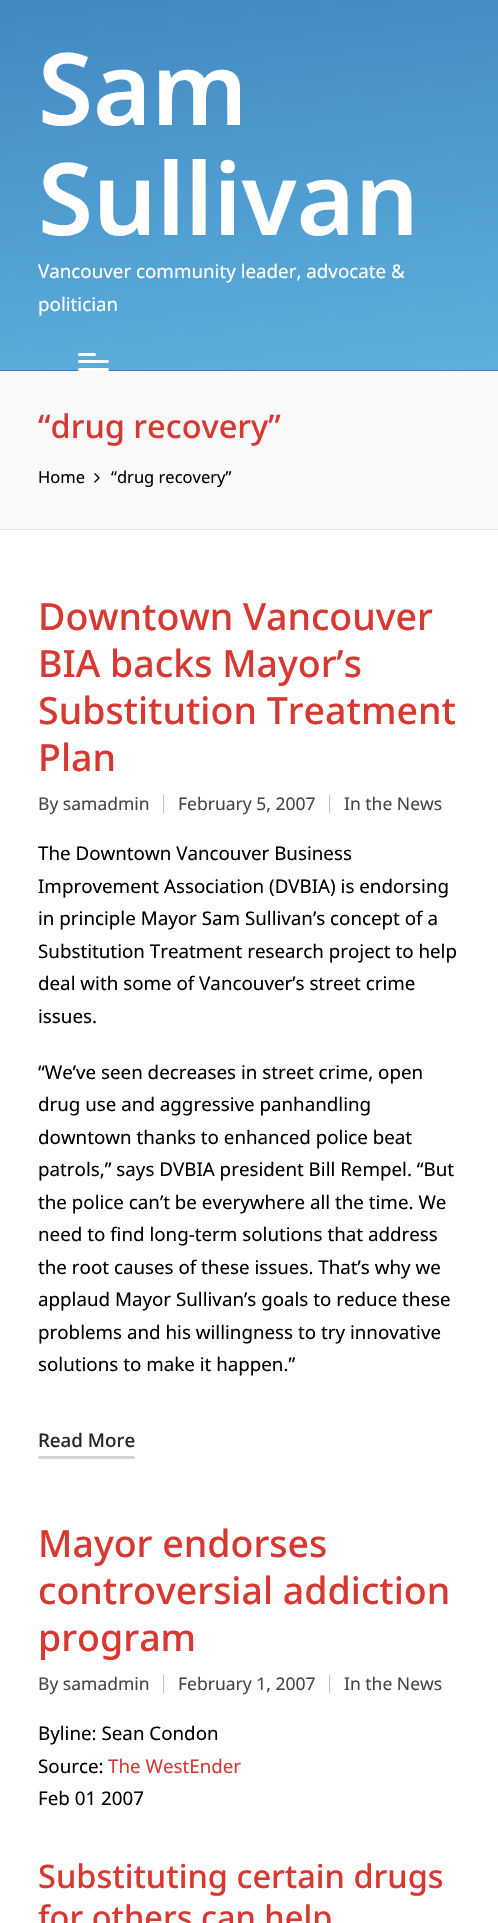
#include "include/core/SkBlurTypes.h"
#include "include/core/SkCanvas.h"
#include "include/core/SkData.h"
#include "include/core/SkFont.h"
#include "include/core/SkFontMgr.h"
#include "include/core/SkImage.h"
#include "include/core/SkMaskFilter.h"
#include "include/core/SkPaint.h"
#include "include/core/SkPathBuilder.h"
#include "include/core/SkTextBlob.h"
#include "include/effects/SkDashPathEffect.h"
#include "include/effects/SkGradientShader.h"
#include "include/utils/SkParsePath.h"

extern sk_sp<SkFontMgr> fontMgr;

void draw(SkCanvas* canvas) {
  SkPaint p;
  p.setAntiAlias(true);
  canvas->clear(SK_ColorWHITE);
  {
    const SkColor colors[] = {SkColorSetRGB(66, 136, 194), SkColorSetRGB(92, 176, 221)};
    const float stops[] = {0, 1};
    const SkPoint ends[] = {{227, -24}, {271, 394}};
    p.setShader(SkGradientShader::MakeLinear(ends, colors, stops, 2, SkTileMode::kClamp));
    p.setAlpha(255);
  }
  canvas->drawRect(SkRect::MakeLTRB(0, 0, 498, 370), p);
  {
    const SkColor colors[] = {SkColorSetRGB(66, 136, 194), SkColorSetRGB(92, 176, 221)};
    const float stops[] = {0, 1};
    const SkPoint ends[] = {{227, 346}, {271, 764}};
    p.setShader(SkGradientShader::MakeLinear(ends, colors, stops, 2, SkTileMode::kClamp));
    p.setAlpha(255);
  }
  canvas->drawRect(SkRect::MakeLTRB(0, 370, 498, 371), p);
  p.setShader(nullptr);
  p.setColor(SkColorSetARGB(23, 0, 0, 0));
  canvas->drawRect(SkRect::MakeLTRB(0, 370, 498, 371), p);
  p.setColor(SK_ColorWHITE);
  canvas->drawRoundRect(SkRect::MakeLTRB(78, 360, 109, 363), 1.5f, 1.5f, p);
  canvas->drawRoundRect(SkRect::MakeLTRB(78, 353, 96, 356), 1.5f, 1.5f, p);
  canvas->drawRoundRect(SkRect::MakeLTRB(78, 368, 109, 371), 1.5f, 1.5f, p);
  p.setColor(SkColorSetRGB(249, 249, 249));
  canvas->drawRect(SkRect::MakeLTRB(0, 371, 498, 529), p);
  p.setColor(SkColorSetRGB(233, 233, 233));
  canvas->drawRect(SkRect::MakeLTRB(0, 529, 498, 530), p);
  canvas->drawImageRect(SkImages::DeferredFromEncodedData(SkData::MakeFromFileName("images/1.png")), SkRect::MakeLTRB(94, 473, 100, 483), SkSamplingOptions());
  p.setColor(SkColorSetRGB(191, 191, 191));
  canvas->drawRect(SkRect::MakeLTRB(163, 795, 164, 813), p);
  canvas->drawRect(SkRect::MakeLTRB(329, 795, 330, 813), p);
  p.setColor(SkColorSetRGB(211, 212, 213));
  canvas->drawRoundRect(SkRect::MakeLTRB(38, 1456, 135, 1459), 1.5f, 1.5f, p);
  p.setColor(SkColorSetRGB(191, 191, 191));
  canvas->drawRect(SkRect::MakeLTRB(163, 1675, 164, 1693), p);
  canvas->drawRect(SkRect::MakeLTRB(329, 1675, 330, 1693), p);
  SkFont font1(fontMgr->matchFamilyStyle("Noto Sans", SkFontStyle(600, SkFontStyle::kNormal_Width, SkFontStyle::kUpright_Slant)), 100);
  font1.setSubpixel(true);
  p.setColor(SK_ColorWHITE);
  canvas->drawString("Sam", 38, 125, font1, p);
  canvas->drawString("Sullivan", 38, 235, font1, p);
  SkFont font2(fontMgr->matchFamilyStyle("Noto Sans", SkFontStyle::Normal()), 18.75f);
  font2.setSubpixel(true);
  canvas->drawString("Vancouver community leader, advocate &", 38, 278, font2, p);
  canvas->drawString("politician", 38, 311, font2, p);
  SkFont font3(fontMgr->matchFamilyStyle("Noto Sans", SkFontStyle(500, SkFontStyle::kNormal_Width, SkFontStyle::kUpright_Slant)), 32.5f);
  font3.setSubpixel(true);
  p.setColor(SkColorSetRGB(215, 56, 49));
  canvas->drawString("“drug recovery”", 38, 438, font3, p);
  SkFont font4(fontMgr->matchFamilyStyle("Noto Sans", SkFontStyle::Normal()), 16.5f);
  font4.setSubpixel(true);
  p.setColor(SK_ColorBLACK);
  canvas->drawString("Home", 38, 483, font4, p);
  canvas->drawString("“drug recovery”", 111, 483, font4, p);
  SkFont font5(fontMgr->matchFamilyStyle("Noto Sans", SkFontStyle(500, SkFontStyle::kNormal_Width, SkFontStyle::kUpright_Slant)), 37.5f);
  font5.setSubpixel(true);
  p.setColor(SkColorSetRGB(215, 56, 49));
  canvas->drawString("Downtown Vancouver", 38, 630, font5, p);
  canvas->drawString("BIA backs Mayor’s", 38, 677, font5, p);
  canvas->drawString("Substitution Treatment", 38, 724, font5, p);
  canvas->drawString("Plan", 38, 771, font5, p);
  SkFont font6(fontMgr->matchFamilyStyle("Noto Sans", SkFontStyle::Normal()), 17.5f);
  font6.setSubpixel(true);
  p.setColor(SkColorSetRGB(69, 69, 69));
  canvas->drawString("By samadmin", 38, 810, font6, p);
  canvas->drawString("February 5, 2007", 178, 810, font6, p);
  canvas->drawString("In the News", 344, 810, font6, p);
  p.setColor(SK_ColorBLACK);
  canvas->drawString("The Downtown Vancouver Business", 38, 860, font2, p);
  canvas->drawString("Improvement Association (DVBIA) is endorsing", 38, 893, font2, p);
  canvas->drawString("in principle Mayor Sam Sullivan’s concept of a", 38, 925, font2, p);
  canvas->drawString("Substitution Treatment research project to help", 38, 958, font2, p);
  canvas->drawString("deal with some of Vancouver’s street crime", 38, 990, font2, p);
  canvas->drawString("issues.", 38, 1023, font2, p);
  canvas->drawString("“We’ve seen decreases in street crime, open", 38, 1079, font2, p);
  canvas->drawString("drug use and aggressive panhandling", 38, 1111, font2, p);
  canvas->drawString("downtown thanks to enhanced police beat", 38, 1144, font2, p);
  canvas->drawString("patrols,” says DVBIA president Bill Rempel. “But", 38, 1176, font2, p);
  canvas->drawString("the police can’t be everywhere all the time. We", 38, 1209, font2, p);
  canvas->drawString("need to find long-term solutions that address", 38, 1241, font2, p);
  canvas->drawString("the root causes of these issues. That’s why we", 38, 1274, font2, p);
  canvas->drawString("applaud Mayor Sullivan’s goals to reduce these", 38, 1306, font2, p);
  canvas->drawString("problems and his willingness to try innovative", 38, 1339, font2, p);
  canvas->drawString("solutions to make it happen.”", 38, 1371, font2, p);
  SkFont font7(fontMgr->matchFamilyStyle("Noto Sans", SkFontStyle(500, SkFontStyle::kNormal_Width, SkFontStyle::kUpright_Slant)), 18.75f);
  font7.setSubpixel(true);
  p.setColor(SkColorSetRGB(35, 40, 45));
  canvas->drawString("Read More", 38, 1447, font7, p);
  p.setColor(SkColorSetRGB(215, 56, 49));
  canvas->drawString("Mayor endorses", 38, 1557, font5, p);
  canvas->drawString("controversial addiction", 38, 1604, font5, p);
  canvas->drawString("program", 38, 1651, font5, p);
  p.setColor(SkColorSetRGB(69, 69, 69));
  canvas->drawString("By samadmin", 38, 1690, font6, p);
  canvas->drawString("February 1, 2007", 178, 1690, font6, p);
  canvas->drawString("In the News", 344, 1690, font6, p);
  p.setColor(SK_ColorBLACK);
  canvas->drawString("Byline: Sean Condon", 38, 1740, font2, p);
  canvas->drawString("Source:", 38, 1773, font2, p);
  p.setColor(SkColorSetRGB(215, 56, 49));
  canvas->drawString("The WestEnder", 108, 1773, font2, p);
  p.setColor(SK_ColorBLACK);
  canvas->drawString("Feb 01 2007", 38, 1805, font2, p);
  p.setColor(SkColorSetRGB(215, 56, 49));
  canvas->drawString("Substituting certain drugs", 38, 1888, font3, p);
  canvas->drawString("for others can help", 38, 1929, font3, p);
}
